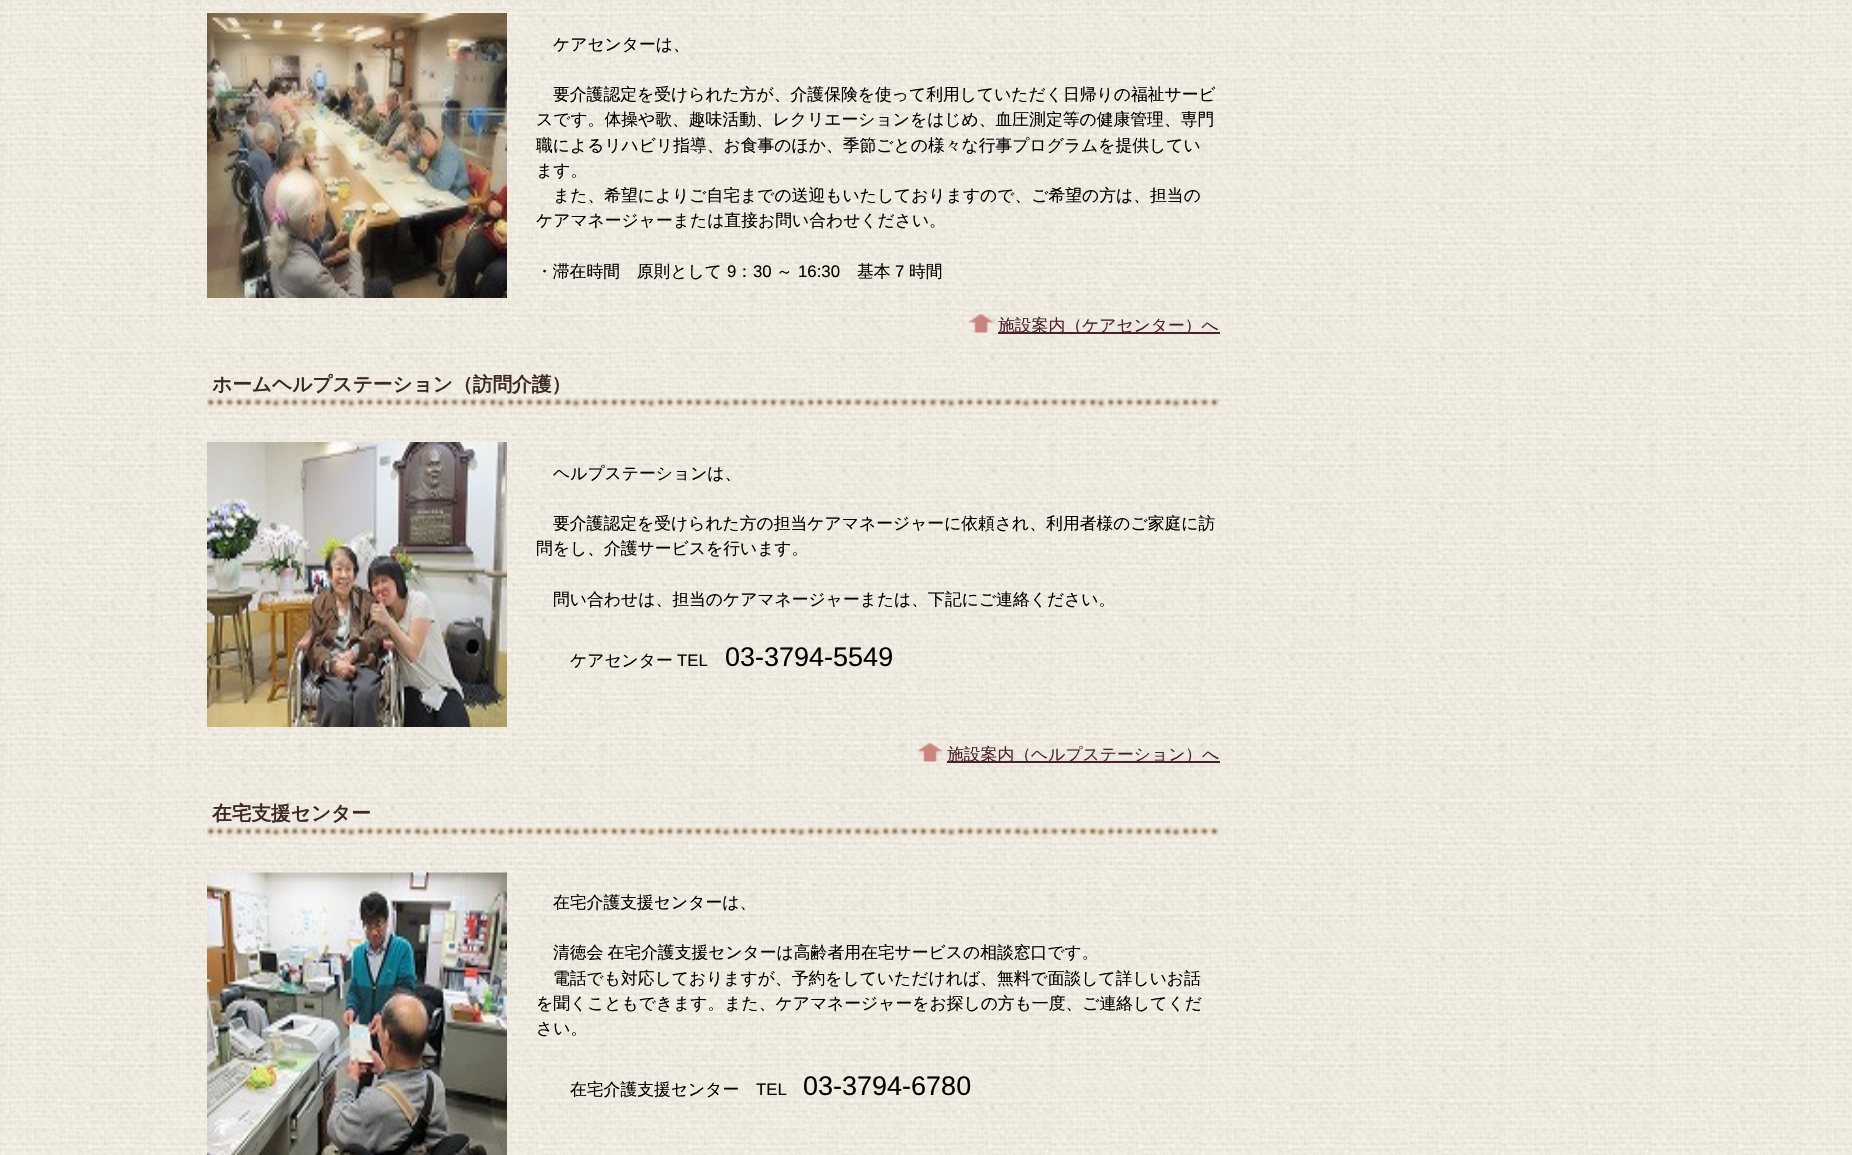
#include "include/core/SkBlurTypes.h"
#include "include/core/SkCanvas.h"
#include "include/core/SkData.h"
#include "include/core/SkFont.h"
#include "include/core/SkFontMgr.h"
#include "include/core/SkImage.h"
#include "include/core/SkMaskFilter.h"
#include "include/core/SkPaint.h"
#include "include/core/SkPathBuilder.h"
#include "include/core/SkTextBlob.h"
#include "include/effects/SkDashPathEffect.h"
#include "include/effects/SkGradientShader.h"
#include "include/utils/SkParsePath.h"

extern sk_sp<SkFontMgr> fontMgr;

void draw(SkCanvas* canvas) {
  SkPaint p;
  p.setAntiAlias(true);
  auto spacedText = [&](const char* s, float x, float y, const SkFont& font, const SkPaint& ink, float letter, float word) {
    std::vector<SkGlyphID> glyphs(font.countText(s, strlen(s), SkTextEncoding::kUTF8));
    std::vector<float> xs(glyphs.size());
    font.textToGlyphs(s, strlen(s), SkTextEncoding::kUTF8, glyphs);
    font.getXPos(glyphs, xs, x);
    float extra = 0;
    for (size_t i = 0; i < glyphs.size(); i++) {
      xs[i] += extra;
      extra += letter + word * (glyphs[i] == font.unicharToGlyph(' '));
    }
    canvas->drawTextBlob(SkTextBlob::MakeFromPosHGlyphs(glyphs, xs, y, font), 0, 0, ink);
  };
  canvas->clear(SK_ColorWHITE);
  canvas->drawImageRect(SkImages::DeferredFromEncodedData(SkData::MakeFromFileName("images/1.png")), SkRect::MakeLTRB(0, 0, 1852, 1155), SkSamplingOptions());
  canvas->drawImageRect(SkImages::DeferredFromEncodedData(SkData::MakeFromFileName("images/2.png")), SkRect::MakeLTRB(207, 13, 507, 298), SkSamplingOptions());
  canvas->drawImageRect(SkImages::DeferredFromEncodedData(SkData::MakeFromFileName("images/3.png")), SkRect::MakeLTRB(968, 314, 994, 333), SkSamplingOptions());
  p.setColor(SkColorSetRGB(73, 32, 46));
  canvas->drawRect(SkRect::MakeLTRB(998, 332, 1220, 334), p);
  canvas->drawImageRect(SkImages::DeferredFromEncodedData(SkData::MakeFromFileName("images/4.png")), SkRect::MakeLTRB(207, 397, 1220, 408), SkSamplingOptions());
  canvas->drawImageRect(SkImages::DeferredFromEncodedData(SkData::MakeFromFileName("images/5.png")), SkRect::MakeLTRB(207, 442, 507, 727), SkSamplingOptions());
  canvas->drawImageRect(SkImages::DeferredFromEncodedData(SkData::MakeFromFileName("images/6.png")), SkRect::MakeLTRB(917, 743, 943, 762), SkSamplingOptions());
  canvas->drawRect(SkRect::MakeLTRB(947, 761, 1220, 763), p);
  canvas->drawImageRect(SkImages::DeferredFromEncodedData(SkData::MakeFromFileName("images/7.png")), SkRect::MakeLTRB(207, 826, 1220, 837), SkSamplingOptions());
  canvas->drawImageRect(SkImages::DeferredFromEncodedData(SkData::MakeFromFileName("images/8.png")), SkRect::MakeLTRB(207, 872, 507, 1155), SkSamplingOptions());
  SkFont font1(fontMgr->matchFamilyStyle("WenQuanYi Zen Hei", SkFontStyle(500, SkFontStyle::kNormal_Width, SkFontStyle::kUpright_Slant)), 16.8f);
  font1.setSubpixel(true);
  p.setColor(SK_ColorBLACK);
  canvas->drawString("ケアセンターは、", 553, 50, font1, p);
  canvas->drawString("要介護認定を受けられた方が、介護保険を使って利用していただく日帰りの福祉サービ", 553, 100, font1, p);
  canvas->drawString("スです。体操や歌、趣味活動、レクリエーションをはじめ、血圧測定等の健康管理、専門", 536, 125, font1, p);
  canvas->drawString("職によるリハビリ指導、お食事のほか、季節ごとの様々な行事プログラムを提供してい", 536, 151, font1, p);
  canvas->drawString("ます。", 536, 176, font1, p);
  canvas->drawString("また、希望によりご自宅までの送迎もいたしておりますので、ご希望の方は、担当の", 553, 201, font1, p);
  canvas->drawString("ケアマネージャーまたは直接お問い合わせください。", 536, 226, font1, p);
  canvas->drawString("・滞在時間　原則として", 536, 277, font1, p);
  SkFont font2(fontMgr->matchFamilyStyle("Liberation Sans", SkFontStyle::Normal()), 16.8f);
  font2.setSubpixel(true);
  canvas->drawString("9", 727, 277, font2, p);
  canvas->drawString("：", 736, 277, font1, p);
  canvas->drawString("30", 753, 277, font2, p);
  canvas->drawString("～", 776, 277, font1, p);
  canvas->drawString("16:30", 798, 277, font2, p);
  canvas->drawString("基本", 857, 277, font1, p);
  canvas->drawString("7", 895, 277, font2, p);
  canvas->drawString("時間", 909, 277, font1, p);
  p.setColor(SkColorSetRGB(73, 32, 46));
  canvas->drawString("施設案内（ケアセンター）へ", 998, 331, font1, p);
  SkFont font3(fontMgr->matchFamilyStyle("WenQuanYi Zen Hei", SkFontStyle::Bold()), 19.7f);
  font3.setSubpixel(true);
  p.setColor(SkColorSetRGB(61, 40, 38));
  canvas->drawString("ホームヘルプステーション（訪問介護）", 212, 391, font3, p);
  p.setColor(SK_ColorBLACK);
  canvas->drawString("ヘルプステーションは、", 553, 479, font1, p);
  canvas->drawString("要介護認定を受けられた方の担当ケアマネージャーに依頼され、利用者様のご家庭に訪", 553, 529, font1, p);
  canvas->drawString("問をし、介護サービスを行います。", 536, 554, font1, p);
  canvas->drawString("問い合わせは、担当のケアマネージャーまたは、下記にご連絡ください。", 553, 605, font1, p);
  canvas->drawString("ケアセンター", 570, 666, font1, p);
  canvas->drawString("TEL", 677, 666, font2, p);
  SkFont font4(fontMgr->matchFamilyStyle("Liberation Sans", SkFontStyle::Normal()), 27);
  font4.setSubpixel(true);
  canvas->drawString("03-3794-5549", 725, 666, font4, p);
  p.setColor(SkColorSetRGB(73, 32, 46));
  canvas->drawString("施設案内（ヘルプステーション）へ", 947, 760, font1, p);
  p.setColor(SkColorSetRGB(61, 40, 38));
  canvas->drawString("在宅支援センター", 212, 820, font3, p);
  p.setColor(SK_ColorBLACK);
  canvas->drawString("在宅介護支援センターは、", 553, 908, font1, p);
  spacedText("清徳会 在宅介護支援センターは高齢者用在宅サービスの相談窓口です。", 553, 958, font1, p, 0, -1);
  canvas->drawString("電話でも対応しておりますが、予約をしていただければ、無料で面談して詳しいお話", 553, 984, font1, p);
  canvas->drawString("を聞くこともできます。また、ケアマネージャーをお探しの方も一度、ご連絡してくだ", 536, 1009, font1, p);
  canvas->drawString("さい。", 536, 1034, font1, p);
  canvas->drawString("在宅介護支援センター", 570, 1095, font1, p);
  canvas->drawString("TEL", 756, 1095, font2, p);
  canvas->drawString("03-3794-6780", 803, 1095, font4, p);
}
